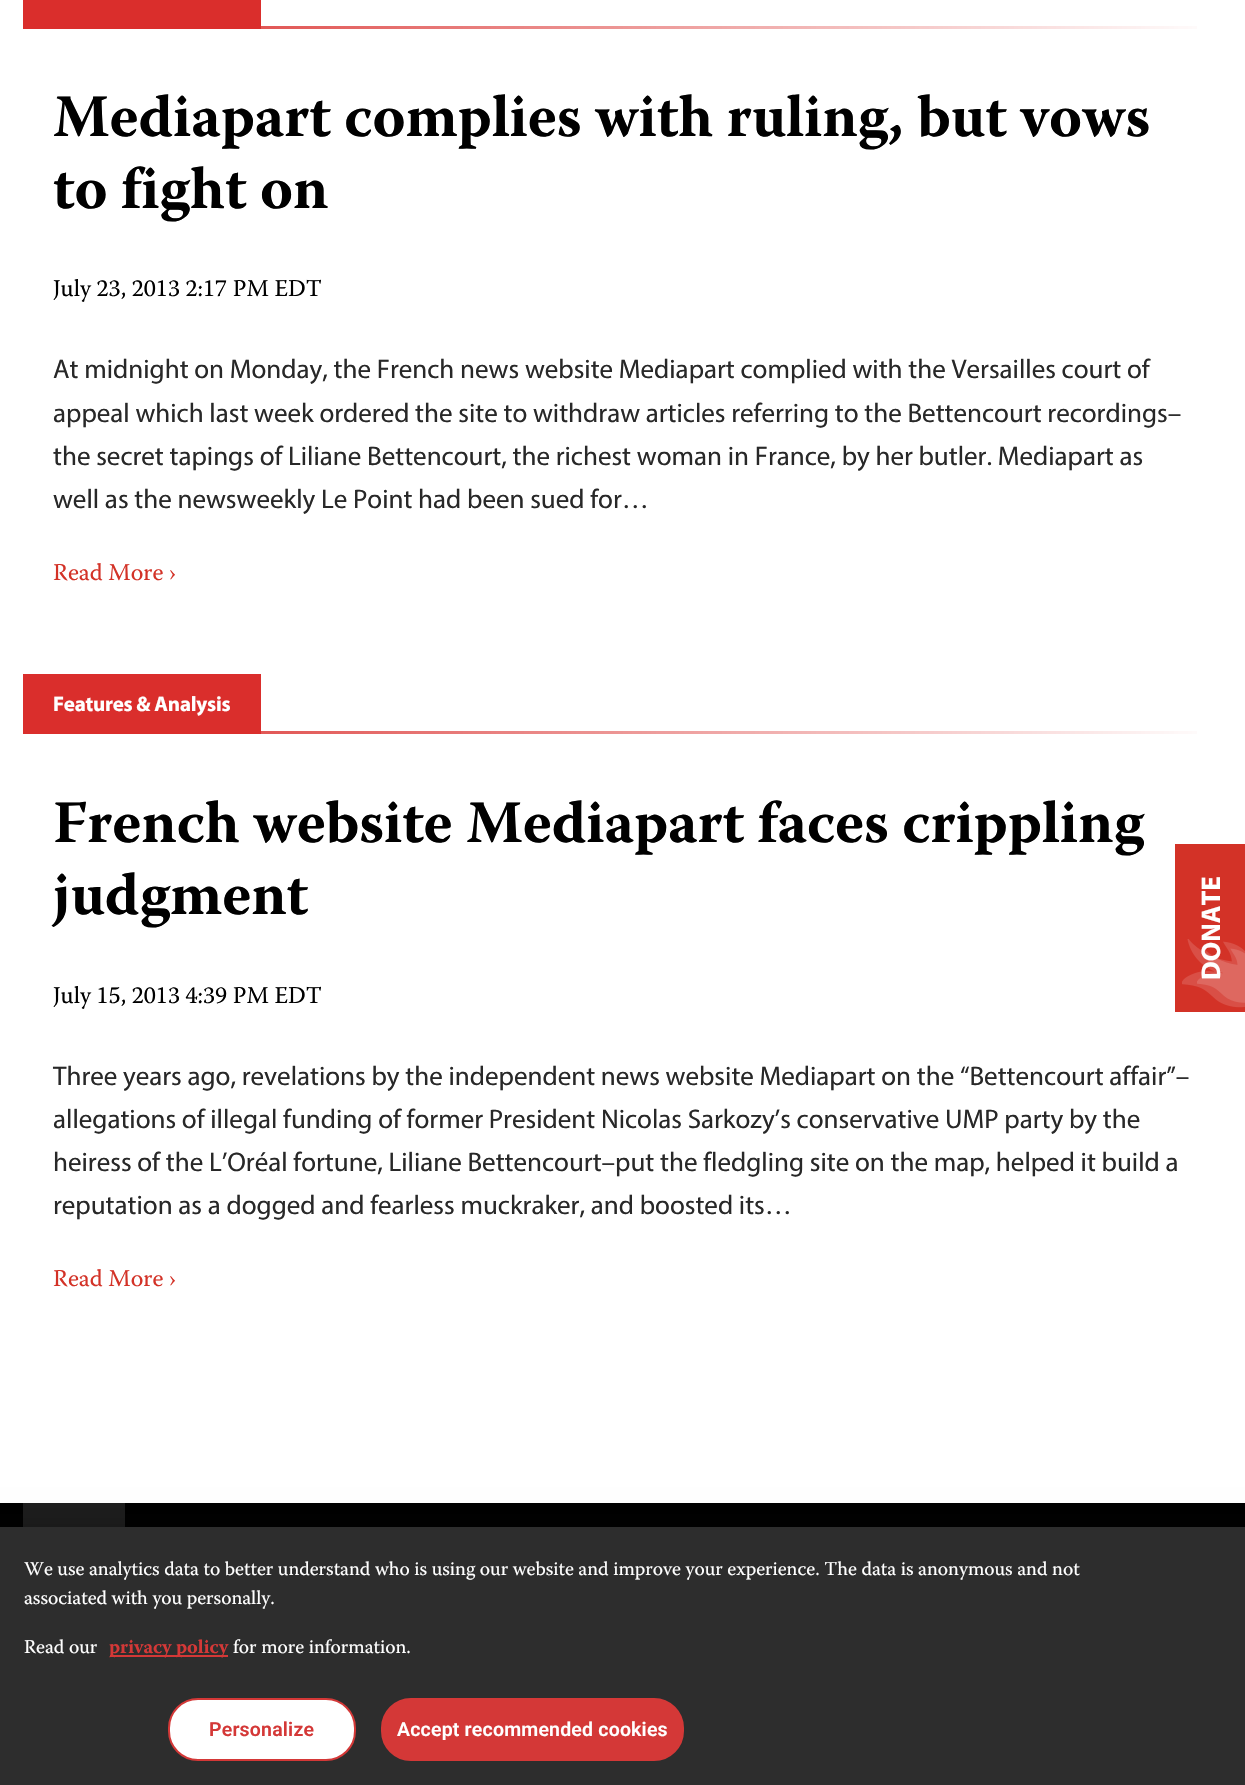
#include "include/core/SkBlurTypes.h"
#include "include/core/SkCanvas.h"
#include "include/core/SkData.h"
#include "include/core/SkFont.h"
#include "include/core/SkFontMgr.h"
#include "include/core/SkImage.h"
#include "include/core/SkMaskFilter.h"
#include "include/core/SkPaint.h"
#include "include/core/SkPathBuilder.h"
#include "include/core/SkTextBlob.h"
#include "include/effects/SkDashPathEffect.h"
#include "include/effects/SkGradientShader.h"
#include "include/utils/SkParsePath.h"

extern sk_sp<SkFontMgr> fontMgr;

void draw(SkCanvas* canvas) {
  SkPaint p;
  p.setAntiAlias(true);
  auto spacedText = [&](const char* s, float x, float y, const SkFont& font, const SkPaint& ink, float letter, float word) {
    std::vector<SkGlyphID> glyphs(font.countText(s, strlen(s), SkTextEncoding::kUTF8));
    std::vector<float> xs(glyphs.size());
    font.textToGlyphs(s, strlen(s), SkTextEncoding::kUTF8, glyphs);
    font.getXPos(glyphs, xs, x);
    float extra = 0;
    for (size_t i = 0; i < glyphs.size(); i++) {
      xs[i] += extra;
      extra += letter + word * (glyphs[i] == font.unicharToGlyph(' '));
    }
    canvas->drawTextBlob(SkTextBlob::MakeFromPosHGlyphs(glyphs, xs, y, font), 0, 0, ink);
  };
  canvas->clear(SK_ColorWHITE);
  p.setColor(SkColorSetRGB(218, 46, 44));
  canvas->drawRect(SkRect::MakeLTRB(23, 0, 261, 29), p);
  {
    const SkColor colors[] = {SkColorSetRGB(218, 46, 44), SkColorSetARGB(0, 218, 46, 44)};
    const float stops[] = {0, 1};
    const SkPoint ends[] = {{23, 27}, {1223, 27}};
    p.setShader(SkGradientShader::MakeLinear(ends, colors, stops, 2, SkTileMode::kClamp));
    p.setAlpha(255);
  }
  canvas->drawRect(SkRect::MakeLTRB(261, 26, 1197, 29), p);
  p.setShader(nullptr);
  p.setColor(SkColorSetRGB(218, 46, 44));
  canvas->drawRect(SkRect::MakeLTRB(23, 674, 261, 734), p);
  {
    const SkColor colors[] = {SkColorSetRGB(218, 46, 44), SkColorSetARGB(0, 218, 46, 44)};
    const float stops[] = {0, 1};
    const SkPoint ends[] = {{23, 732}, {1223, 732}};
    p.setShader(SkGradientShader::MakeLinear(ends, colors, stops, 2, SkTileMode::kClamp));
    p.setAlpha(255);
  }
  canvas->drawRect(SkRect::MakeLTRB(261, 731, 1197, 734), p);
  {
    const SkColor colors[] = {SK_ColorBLACK, SkColorSetRGB(29, 29, 29)};
    const float stops[] = {0, 1};
    const SkPoint ends[] = {{623, 1503}, {623, 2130}};
    p.setShader(SkGradientShader::MakeLinear(ends, colors, stops, 2, SkTileMode::kClamp));
    p.setAlpha(255);
  }
  canvas->drawRect(SkRect::MakeLTRB(0, 1503, 1245, 1527), p);
  p.setShader(nullptr);
  p.setColor(SkColorSetRGB(211, 50, 39));
  canvas->drawRect(SkRect::MakeLTRB(1175, 844, 1245, 1012), p);
  canvas->drawImageRect(SkImages::DeferredFromEncodedData(SkData::MakeFromFileName("images/1.png")), SkRect::MakeLTRB(1182, 939, 1245, 1008), SkSamplingOptions());
  canvas->drawImageRect(SkImages::DeferredFromEncodedData(SkData::MakeFromFileName("images/2.png")), SkRect::MakeLTRB(1197, 947, 1245, 1003), SkSamplingOptions());
  p.setColor(SkColorSetRGB(29, 29, 29));
  canvas->drawRect(SkRect::MakeLTRB(23, 1503, 125, 1527), p);
  p.setColor(SkColorSetARGB(51, 0, 0, 0));
  p.setMaskFilter(SkMaskFilter::MakeBlur(kNormal_SkBlurStyle, 13.5f));
  canvas->drawRect(SkRect::MakeLTRB(0, 1527, 1245, 1785), p);
  p.setMaskFilter(nullptr);
  p.setColor(SkColorSetRGB(45, 45, 45));
  canvas->drawRect(SkRect::MakeLTRB(0, 1527, 1245, 1785), p);
  p.setColor(SkColorSetRGB(212, 56, 55));
  canvas->drawRect(SkRect::MakeLTRB(110, 1655, 228, 1657), p);
  p.setColor(SK_ColorWHITE);
  canvas->drawRoundRect(SkRect::MakeLTRB(169, 1699, 355, 1760), 29, 29, p);
  p.setStyle(SkPaint::kStroke_Style);
  p.setStrokeWidth(2);
  p.setColor(SkColorSetRGB(212, 56, 55));
  canvas->drawRoundRect(SkRect::MakeLTRB(169, 1699, 355, 1760), 29, 29, p);
  p.setStyle(SkPaint::kFill_Style);
  canvas->drawRoundRect(SkRect::MakeLTRB(382, 1699, 683, 1760), 29, 29, p);
  p.setStyle(SkPaint::kStroke_Style);
  canvas->drawRoundRect(SkRect::MakeLTRB(382, 1699, 683, 1760), 29, 29, p);
  SkFont font1(fontMgr->matchFamilyStyle("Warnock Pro", SkFontStyle::Bold()), 60);
  font1.setSubpixel(true);
  p.setStyle(SkPaint::kFill_Style);
  p.setColor(SK_ColorBLACK);
  canvas->drawString("Mediapart complies with ruling, but vows", 53, 136, font1, p);
  canvas->drawString("to fight on", 53, 208, font1, p);
  SkFont font2(fontMgr->matchFamilyStyle("Warnock Pro", SkFontStyle::Normal()), 24);
  font2.setSubpixel(true);
  canvas->drawString("July 23, 2013 2:17 PM EDT", 53, 296, font2, p);
  SkFont font3(fontMgr->matchFamilyStyle("Myriad", SkFontStyle::Normal()), 27);
  font3.setSubpixel(true);
  p.setColor(SkColorSetRGB(40, 40, 40));
  canvas->drawString("At midnight on Monday, the French news website Mediapart complied with the Versailles court of", 53, 378, font3, p);
  canvas->drawString("appeal which last week ordered the site to withdraw articles referring to the Bettencourt recordings–", 53, 422, font3, p);
  canvas->drawString("the secret tapings of Liliane Bettencourt, the richest woman in France, by her butler. Mediapart as", 53, 465, font3, p);
  canvas->drawString("well as the newsweekly Le Point had been sued for…", 53, 508, font3, p);
  p.setColor(SkColorSetRGB(211, 50, 39));
  canvas->drawString("Read More ›", 53, 580, font2, p);
  SkFont font4(fontMgr->matchFamilyStyle("Myriad", SkFontStyle::Bold()), 21);
  font4.setSubpixel(true);
  p.setColor(SK_ColorWHITE);
  spacedText("Features & Analysis", 53, 711, font4, p, -0.25f, 0);
  p.setColor(SK_ColorBLACK);
  canvas->drawString("French website Mediapart faces crippling", 53, 842, font1, p);
  canvas->drawString("judgment", 53, 914, font1, p);
  canvas->drawString("July 15, 2013 4:39 PM EDT", 53, 1003, font2, p);
  p.setColor(SkColorSetRGB(40, 40, 40));
  canvas->drawString("Three years ago, revelations by the independent news website Mediapart on the “Bettencourt affair”–", 53, 1085, font3, p);
  canvas->drawString("allegations of illegal funding of former President Nicolas Sarkozy’s conservative UMP party by the", 53, 1128, font3, p);
  canvas->drawString("heiress of the L’Oréal fortune, Liliane Bettencourt–put the fledgling site on the map, helped it build a", 53, 1171, font3, p);
  canvas->drawString("reputation as a dogged and fearless muckraker, and boosted its…", 53, 1214, font3, p);
  p.setColor(SkColorSetRGB(211, 50, 39));
  canvas->drawString("Read More ›", 53, 1286, font2, p);
  SkFont font5(fontMgr->matchFamilyStyle("Myriad", SkFontStyle::Bold()), 27);
  font5.setSubpixel(true);
  p.setColor(SK_ColorWHITE);
  canvas->save();
  canvas->rotate(-90, 1220, 980);
  canvas->drawString("DONATE", 1220, 980, font5, p);
  canvas->restore();
  SkFont font6(fontMgr->matchFamilyStyle("Warnock Pro", SkFontStyle::Normal()), 19.5f);
  font6.setSubpixel(true);
  canvas->drawString("We use analytics data to better understand who is using our website and improve your experience. The data is anonymous and not", 24, 1575, font6, p);
  canvas->drawString("associated with you personally.", 24, 1604, font6, p);
  canvas->drawString("Read our", 24, 1653, font6, p);
  SkFont font7(fontMgr->matchFamilyStyle("Warnock Pro", SkFontStyle::Bold()), 19.5f);
  font7.setSubpixel(true);
  p.setColor(SkColorSetRGB(212, 56, 55));
  canvas->drawString("privacy policy", 109, 1653, font7, p);
  p.setColor(SK_ColorWHITE);
  canvas->drawString("for more information.", 233, 1653, font6, p);
  SkFont font8(fontMgr->matchFamilyStyle("Roboto", SkFontStyle(600, SkFontStyle::kNormal_Width, SkFontStyle::kUpright_Slant)), 19.5f);
  font8.setSubpixel(true);
  p.setColor(SkColorSetRGB(212, 56, 55));
  spacedText("Personalize", 209, 1736, font8, p, 0.2f, 0);
  p.setColor(SK_ColorWHITE);
  spacedText("Accept recommended cookies", 397, 1736, font8, p, 0.2f, 0);
}
